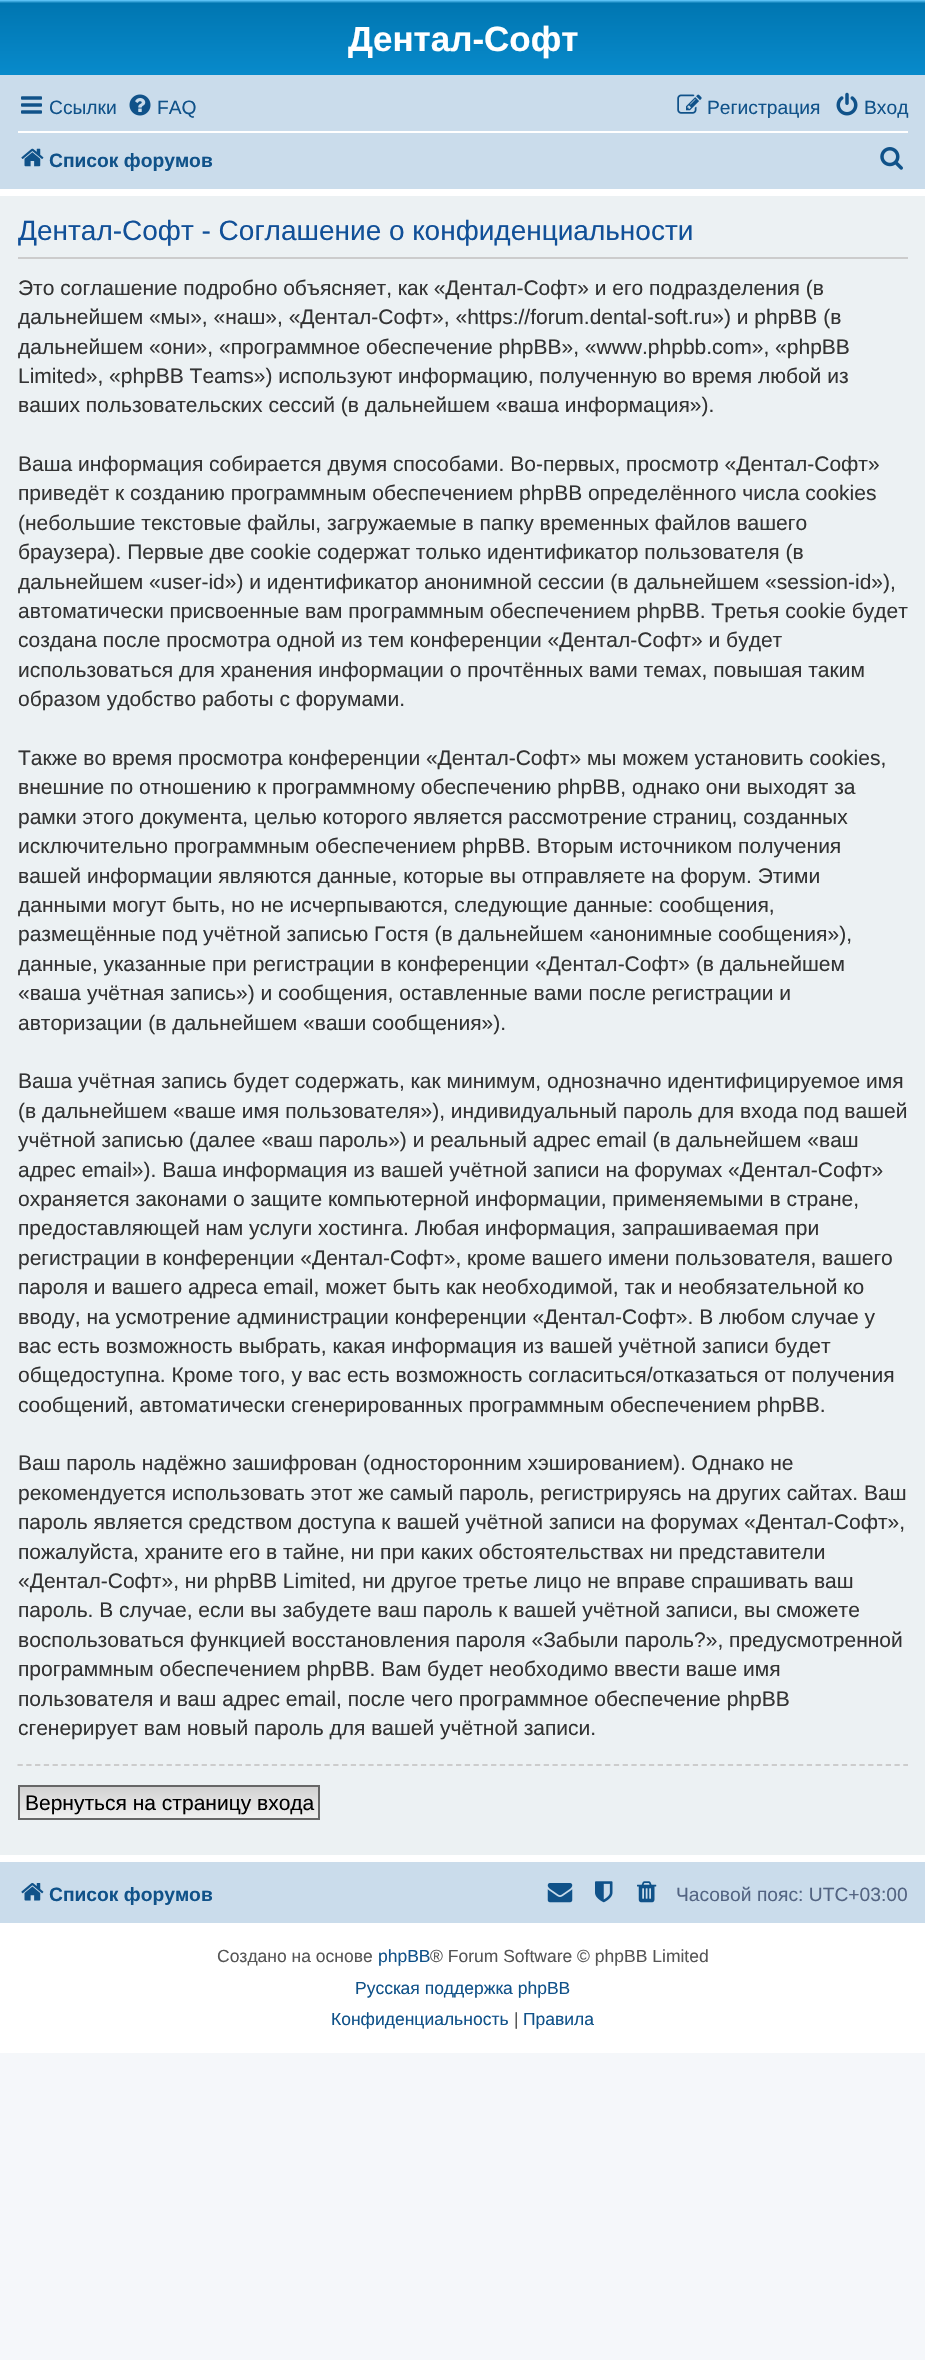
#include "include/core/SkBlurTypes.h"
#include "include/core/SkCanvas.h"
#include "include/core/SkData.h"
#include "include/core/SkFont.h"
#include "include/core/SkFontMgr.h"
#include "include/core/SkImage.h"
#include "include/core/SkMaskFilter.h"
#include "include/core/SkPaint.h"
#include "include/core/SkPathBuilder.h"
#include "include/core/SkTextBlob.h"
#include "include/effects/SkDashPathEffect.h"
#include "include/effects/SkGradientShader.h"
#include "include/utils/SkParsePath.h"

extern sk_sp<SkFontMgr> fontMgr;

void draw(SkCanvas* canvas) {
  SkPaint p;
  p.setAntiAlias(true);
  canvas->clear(SkColorSetRGB(245, 247, 250));
  p.setColor(SK_ColorWHITE);
  canvas->drawRect(SkRect::MakeLTRB(0, 189, 925, 2053), p);
  {
    const SkColor colors[] = {SkColorSetRGB(106, 206, 255), SkColorSetRGB(0, 118, 177), SkColorSetRGB(18, 163, 235)};
    const float stops[] = {0, 0.02f, 1};
    const SkPoint ends[] = {{463, 0}, {463, 161}};
    p.setShader(SkGradientShader::MakeLinear(ends, colors, stops, 3, SkTileMode::kClamp));
    p.setAlpha(255);
  }
  canvas->drawRect(SkRect::MakeLTRB(0, 0, 925, 75), p);
  p.setShader(nullptr);
  p.setColor(SkColorSetRGB(202, 220, 235));
  canvas->drawRect(SkRect::MakeLTRB(0, 75, 925, 189), p);
  canvas->drawImageRect(SkImages::DeferredFromEncodedData(SkData::MakeFromFileName("images/1.png")), SkRect::MakeLTRB(21, 96, 42, 114), SkSamplingOptions());
  canvas->drawImageRect(SkImages::DeferredFromEncodedData(SkData::MakeFromFileName("images/2.png")), SkRect::MakeLTRB(129, 94, 151, 116), SkSamplingOptions());
  canvas->drawImageRect(SkImages::DeferredFromEncodedData(SkData::MakeFromFileName("images/3.png")), SkRect::MakeLTRB(677, 94, 702, 114), SkSamplingOptions());
  canvas->drawImageRect(SkImages::DeferredFromEncodedData(SkData::MakeFromFileName("images/4.png")), SkRect::MakeLTRB(836, 92, 858, 116), SkSamplingOptions());
  p.setColor(SK_ColorWHITE);
  canvas->drawRect(SkRect::MakeLTRB(18, 131, 908, 133), p);
  canvas->drawImageRect(SkImages::DeferredFromEncodedData(SkData::MakeFromFileName("images/5.png")), SkRect::MakeLTRB(21, 148, 44, 167), SkSamplingOptions());
  canvas->drawImageRect(SkImages::DeferredFromEncodedData(SkData::MakeFromFileName("images/6.png")), SkRect::MakeLTRB(880, 147, 903, 170), SkSamplingOptions());
  p.setColor(SkColorSetRGB(236, 241, 243));
  canvas->drawRect(SkRect::MakeLTRB(0, 196, 925, 1855), p);
  p.setColor(SkColorSetRGB(204, 204, 204));
  canvas->drawRect(SkRect::MakeLTRB(18, 257, 908, 259), p);
  p.setStyle(SkPaint::kStroke_Style);
  p.setStrokeWidth(1.8f);
  p.setPathEffect(SkDashPathEffect::Make({{5.25f, 3.52f}}, 0));
  canvas->drawPath(SkPathBuilder().moveTo(17.5f, 1765).lineTo(908, 1765).detach(), p);
  p.setPathEffect(nullptr);
  p.setStyle(SkPaint::kFill_Style);
  {
    const SkColor colors[] = {SkColorSetRGB(210, 210, 210), SkColorSetRGB(239, 239, 239)};
    const float stops[] = {0, 1};
    const SkPoint ends[] = {{169, 1787}, {169, 1818}};
    p.setShader(SkGradientShader::MakeLinear(ends, colors, stops, 2, SkTileMode::kClamp));
    p.setAlpha(255);
  }
  canvas->drawRect(SkRect::MakeLTRB(20, 1787, 318, 1818), p);
  p.setStyle(SkPaint::kStroke_Style);
  p.setStrokeWidth(2);
  p.setShader(nullptr);
  p.setColor(SkColorSetRGB(102, 102, 102));
  canvas->drawRect(SkRect::MakeLTRB(19, 1786, 319, 1819), p);
  p.setStyle(SkPaint::kFill_Style);
  p.setColor(SkColorSetRGB(202, 220, 235));
  canvas->drawRect(SkRect::MakeLTRB(0, 1862, 925, 1923), p);
  canvas->drawImageRect(SkImages::DeferredFromEncodedData(SkData::MakeFromFileName("images/7.png")), SkRect::MakeLTRB(21, 1883, 44, 1901), SkSamplingOptions());
  canvas->drawImageRect(SkImages::DeferredFromEncodedData(SkData::MakeFromFileName("images/8.png")), SkRect::MakeLTRB(547, 1883, 573, 1903), SkSamplingOptions());
  canvas->drawImageRect(SkImages::DeferredFromEncodedData(SkData::MakeFromFileName("images/9.png")), SkRect::MakeLTRB(595, 1881, 613, 1903), SkSamplingOptions());
  canvas->drawImageRect(SkImages::DeferredFromEncodedData(SkData::MakeFromFileName("images/10.png")), SkRect::MakeLTRB(637, 1881, 657, 1903), SkSamplingOptions());
  SkFont font1(fontMgr->matchFamilyStyle("Liberation Sans", SkFontStyle::Bold()), 35);
  font1.setSubpixel(true);
  p.setColor(SK_ColorWHITE);
  canvas->drawString("Дентал-Софт", 348, 51, font1, p);
  SkFont font2(fontMgr->matchFamilyStyle("Liberation Sans", SkFontStyle::Normal()), 19.25f);
  font2.setSubpixel(true);
  p.setColor(SkColorSetRGB(16, 82, 137));
  canvas->drawString("Ссылки", 49, 114, font2, p);
  canvas->drawString("FAQ", 157, 114, font2, p);
  canvas->drawString("Регистрация", 707, 114, font2, p);
  canvas->drawString("Вход", 864, 114, font2, p);
  SkFont font3(fontMgr->matchFamilyStyle("Liberation Sans", SkFontStyle::Bold()), 19.25f);
  font3.setSubpixel(true);
  canvas->drawString("Список форумов", 49, 167, font3, p);
  canvas->save();
  canvas->clipRect(SkRect::MakeLTRB(18, 205, 908, 1846));
  SkFont font4(fontMgr->matchFamilyStyle("Liberation Sans", SkFontStyle::Normal()), 28);
  font4.setSubpixel(true);
  p.setColor(SkColorSetRGB(17, 80, 152));
  canvas->drawString("Дентал-Софт - Соглашение о конфиденциальности", 18, 240, font4, p);
  canvas->restore();
  SkFont font5(fontMgr->matchFamilyStyle("Liberation Sans", SkFontStyle::Normal()), 21);
  font5.setSubpixel(true);
  p.setColor(SkColorSetRGB(51, 51, 51));
  canvas->drawString("Это соглашение подробно объясняет, как «Дентал-Софт» и его подразделения (в", 18, 295, font5, p);
  canvas->save();
  canvas->clipRect(SkRect::MakeLTRB(18, 273, 908, 1743));
  canvas->drawString("дальнейшем «мы», «наш», «Дентал-Софт», «https://forum.dental-soft.ru») и phpBB (в", 18, 324, font5, p);
  canvas->drawString("дальнейшем «они», «программное обеспечение phpBB», «www.phpbb.com», «phpBB", 18, 354, font5, p);
  canvas->restore();
  canvas->drawString("Limited», «phpBB Teams») используют информацию, полученную во время любой из", 18, 383, font5, p);
  canvas->drawString("ваших пользовательских сессий (в дальнейшем «ваша информация»).", 18, 412, font5, p);
  canvas->drawString("Ваша информация собирается двумя способами. Во-первых, просмотр «Дентал-Софт»", 18, 471, font5, p);
  canvas->drawString("приведёт к созданию программным обеспечением phpBB определённого числа cookies", 18, 500, font5, p);
  canvas->drawString("(небольшие текстовые файлы, загружаемые в папку временных файлов вашего", 18, 530, font5, p);
  canvas->drawString("браузера). Первые две cookie содержат только идентификатор пользователя (в", 18, 559, font5, p);
  canvas->save();
  canvas->clipRect(SkRect::MakeLTRB(18, 273, 908, 1743));
  canvas->drawString("дальнейшем «user-id») и идентификатор анонимной сессии (в дальнейшем «session-id»),", 18, 589, font5, p);
  canvas->restore();
  canvas->drawString("автоматически присвоенные вам программным обеспечением phpBB. Третья cookie будет", 18, 618, font5, p);
  canvas->drawString("создана после просмотра одной из тем конференции «Дентал-Софт» и будет", 18, 647, font5, p);
  canvas->drawString("использоваться для хранения информации о прочтённых вами темах, повышая таким", 18, 677, font5, p);
  canvas->drawString("образом удобство работы с форумами.", 18, 706, font5, p);
  canvas->drawString("Также во время просмотра конференции «Дентал-Софт» мы можем установить cookies,", 18, 765, font5, p);
  canvas->drawString("внешние по отношению к программному обеспечению phpBB, однако они выходят за", 18, 794, font5, p);
  canvas->drawString("рамки этого документа, целью которого является рассмотрение страниц, созданных", 18, 824, font5, p);
  canvas->drawString("исключительно программным обеспечением phpBB. Вторым источником получения", 18, 853, font5, p);
  canvas->drawString("вашей информации являются данные, которые вы отправляете на форум. Этими", 18, 883, font5, p);
  canvas->save();
  canvas->clipRect(SkRect::MakeLTRB(18, 273, 908, 1743));
  canvas->drawString("данными могут быть, но не исчерпываются, следующие данные: сообщения,", 18, 912, font5, p);
  canvas->restore();
  canvas->drawString("размещённые под учётной записью Гостя (в дальнейшем «анонимные сообщения»),", 18, 941, font5, p);
  canvas->save();
  canvas->clipRect(SkRect::MakeLTRB(18, 273, 908, 1743));
  canvas->drawString("данные, указанные при регистрации в конференции «Дентал-Софт» (в дальнейшем", 18, 971, font5, p);
  canvas->restore();
  canvas->drawString("«ваша учётная запись») и сообщения, оставленные вами после регистрации и", 18, 1000, font5, p);
  canvas->drawString("авторизации (в дальнейшем «ваши сообщения»).", 18, 1030, font5, p);
  canvas->drawString("Ваша учётная запись будет содержать, как минимум, однозначно идентифицируемое имя", 18, 1088, font5, p);
  canvas->drawString("(в дальнейшем «ваше имя пользователя»), индивидуальный пароль для входа под вашей", 18, 1118, font5, p);
  canvas->drawString("учётной записью (далее «ваш пароль») и реальный адрес email (в дальнейшем «ваш", 18, 1147, font5, p);
  canvas->drawString("адрес email»). Ваша информация из вашей учётной записи на форумах «Дентал-Софт»", 18, 1177, font5, p);
  canvas->drawString("охраняется законами о защите компьютерной информации, применяемыми в стране,", 18, 1206, font5, p);
  canvas->drawString("предоставляющей нам услуги хостинга. Любая информация, запрашиваемая при", 18, 1235, font5, p);
  canvas->drawString("регистрации в конференции «Дентал-Софт», кроме вашего имени пользователя, вашего", 18, 1265, font5, p);
  canvas->drawString("пароля и вашего адреса email, может быть как необходимой, так и необязательной ко", 18, 1294, font5, p);
  canvas->drawString("вводу, на усмотрение администрации конференции «Дентал-Софт». В любом случае у", 18, 1324, font5, p);
  canvas->drawString("вас есть возможность выбрать, какая информация из вашей учётной записи будет", 18, 1353, font5, p);
  canvas->drawString("общедоступна. Кроме того, у вас есть возможность согласиться/отказаться от получения", 18, 1382, font5, p);
  canvas->drawString("сообщений, автоматически сгенерированных программным обеспечением phpBB.", 18, 1412, font5, p);
  canvas->drawString("Ваш пароль надёжно зашифрован (односторонним хэшированием). Однако не", 18, 1470, font5, p);
  canvas->drawString("рекомендуется использовать этот же самый пароль, регистрируясь на других сайтах. Ваш", 18, 1500, font5, p);
  canvas->drawString("пароль является средством доступа к вашей учётной записи на форумах «Дентал-Софт»,", 18, 1529, font5, p);
  canvas->drawString("пожалуйста, храните его в тайне, ни при каких обстоятельствах ни представители", 18, 1559, font5, p);
  canvas->drawString("«Дентал-Софт», ни phpBB Limited, ни другое третье лицо не вправе спрашивать ваш", 18, 1588, font5, p);
  canvas->drawString("пароль. В случае, если вы забудете ваш пароль к вашей учётной записи, вы сможете", 18, 1617, font5, p);
  canvas->drawString("воспользоваться функцией восстановления пароля «Забыли пароль?», предусмотренной", 18, 1647, font5, p);
  canvas->drawString("программным обеспечением phpBB. Вам будет необходимо ввести ваше имя", 18, 1676, font5, p);
  canvas->drawString("пользователя и ваш адрес email, после чего программное обеспечение phpBB", 18, 1706, font5, p);
  canvas->drawString("сгенерирует вам новый пароль для вашей учётной записи.", 18, 1735, font5, p);
  p.setColor(SK_ColorBLACK);
  canvas->drawString("Вернуться на страницу входа", 25, 1810, font5, p);
  p.setColor(SkColorSetRGB(16, 82, 137));
  canvas->drawString("Список форумов", 49, 1901, font3, p);
  p.setColor(SkColorSetRGB(83, 100, 130));
  canvas->drawString("Часовой пояс: UTC+03:00", 676, 1901, font2, p);
  SkFont font6(fontMgr->matchFamilyStyle("Liberation Sans", SkFontStyle::Normal()), 17.5f);
  font6.setSubpixel(true);
  p.setColor(SkColorSetRGB(85, 85, 85));
  canvas->drawString("Создано на основе", 217, 1962, font6, p);
  p.setColor(SkColorSetRGB(16, 82, 137));
  canvas->drawString("phpBB", 378, 1962, font6, p);
  p.setColor(SkColorSetRGB(85, 85, 85));
  canvas->drawString("® Forum Software © phpBB Limited", 430, 1962, font6, p);
  p.setColor(SkColorSetRGB(16, 82, 137));
  canvas->drawString("Русская поддержка phpBB", 355, 1994, font6, p);
  canvas->drawString("Конфиденциальность", 331, 2025, font6, p);
  p.setColor(SkColorSetRGB(85, 85, 85));
  canvas->drawString("|", 514, 2025, font6, p);
  p.setColor(SkColorSetRGB(16, 82, 137));
  canvas->drawString("Правила", 523, 2025, font6, p);
}
